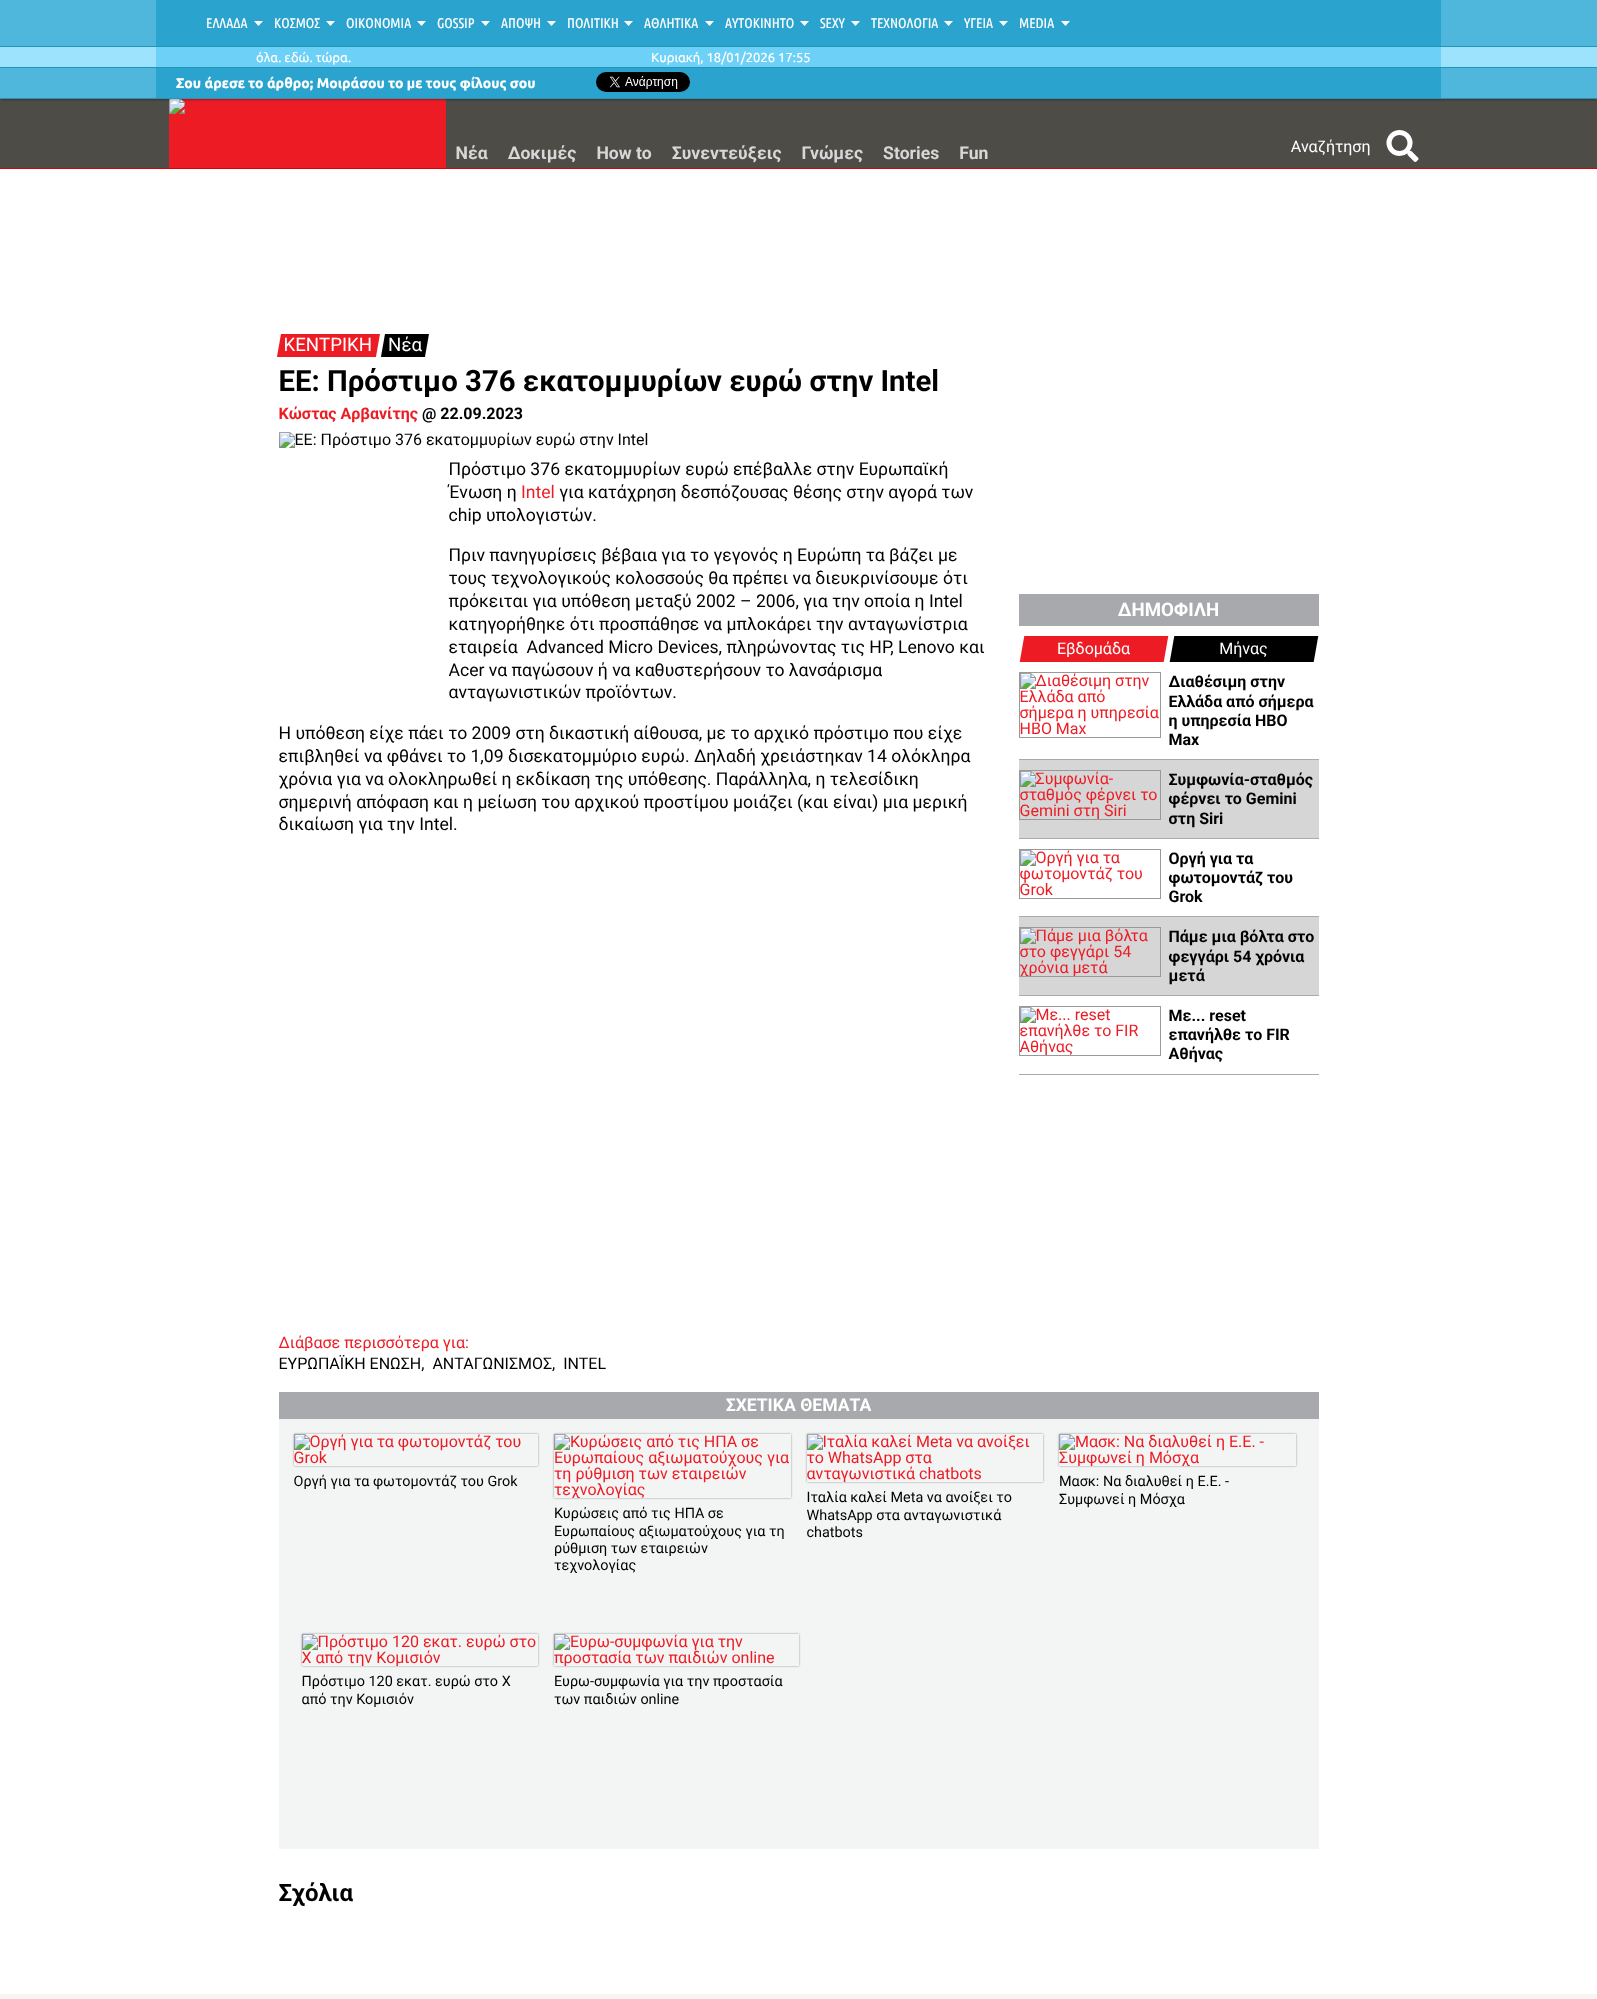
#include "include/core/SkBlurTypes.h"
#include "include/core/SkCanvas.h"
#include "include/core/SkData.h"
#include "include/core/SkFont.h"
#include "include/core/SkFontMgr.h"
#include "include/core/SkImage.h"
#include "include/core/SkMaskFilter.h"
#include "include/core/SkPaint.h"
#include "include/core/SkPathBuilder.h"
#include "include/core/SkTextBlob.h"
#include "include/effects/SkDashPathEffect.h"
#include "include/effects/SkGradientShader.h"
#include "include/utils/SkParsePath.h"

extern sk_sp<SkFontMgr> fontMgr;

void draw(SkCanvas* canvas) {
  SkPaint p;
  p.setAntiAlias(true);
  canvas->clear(SkColorSetRGB(246, 245, 242));
  p.setColor(SkColorSetRGB(80, 183, 220));
  canvas->drawRect(SkRect::MakeLTRB(0, 0, 1597, 46), p);
  p.setColor(SkColorSetRGB(38, 147, 186));
  canvas->drawRect(SkRect::MakeLTRB(0, 46, 1597, 47), p);
  p.setColor(SkColorSetRGB(42, 164, 207));
  canvas->drawRect(SkRect::MakeLTRB(156, 0, 1441, 46), p);
  p.setColor(SK_ColorWHITE);
  canvas->drawPath(SkPathBuilder().moveTo(263, 21).lineTo(258.5f, 26).lineTo(254, 21).close().detach(), p);
  canvas->drawPath(SkPathBuilder().moveTo(335, 21).lineTo(330.5f, 26).lineTo(326, 21).close().detach(), p);
  canvas->drawPath(SkPathBuilder().moveTo(426, 21).lineTo(421.5f, 26).lineTo(417, 21).close().detach(), p);
  canvas->drawPath(SkPathBuilder().moveTo(490, 21).lineTo(485.5f, 26).lineTo(481, 21).close().detach(), p);
  canvas->drawPath(SkPathBuilder().moveTo(556, 21).lineTo(551.5f, 26).lineTo(547, 21).close().detach(), p);
  canvas->drawPath(SkPathBuilder().moveTo(633, 21).lineTo(628.5f, 26).lineTo(624, 21).close().detach(), p);
  canvas->drawPath(SkPathBuilder().moveTo(714, 21).lineTo(709.5f, 26).lineTo(705, 21).close().detach(), p);
  canvas->drawPath(SkPathBuilder().moveTo(809, 21).lineTo(804.5f, 26).lineTo(800, 21).close().detach(), p);
  canvas->drawPath(SkPathBuilder().moveTo(860, 21).lineTo(855.5f, 26).lineTo(851, 21).close().detach(), p);
  canvas->drawPath(SkPathBuilder().moveTo(953, 21).lineTo(948.5f, 26).lineTo(944, 21).close().detach(), p);
  canvas->drawPath(SkPathBuilder().moveTo(1008, 21).lineTo(1003.5f, 26).lineTo(999, 21).close().detach(), p);
  canvas->drawPath(SkPathBuilder().moveTo(1070, 21).lineTo(1065.5f, 26).lineTo(1061, 21).close().detach(), p);
  p.setColor(SkColorSetRGB(158, 227, 254));
  canvas->drawRect(SkRect::MakeLTRB(0, 47, 1597, 67), p);
  p.setColor(SkColorSetRGB(38, 147, 186));
  canvas->drawRect(SkRect::MakeLTRB(0, 67, 1597, 68), p);
  p.setColor(SkColorSetRGB(109, 208, 247));
  canvas->drawRect(SkRect::MakeLTRB(156, 47, 1441, 67), p);
  canvas->drawImageRect(SkImages::DeferredFromEncodedData(SkData::MakeFromFileName("images/2.png")), SkRect::MakeLTRB(0, 99, 1597, 1994), SkSamplingOptions());
  p.setColor(SkColorSetARGB(77, 0, 0, 0));
  p.setMaskFilter(SkMaskFilter::MakeBlur(kNormal_SkBlurStyle, 1));
  canvas->drawRect(SkRect::MakeLTRB(1, 71, 1596, 100), p);
  p.setMaskFilter(nullptr);
  p.setColor(SkColorSetRGB(80, 183, 220));
  canvas->drawRect(SkRect::MakeLTRB(0, 68, 1597, 98), p);
  p.setColor(SkColorSetRGB(38, 147, 186));
  canvas->drawRect(SkRect::MakeLTRB(0, 98, 1597, 99), p);
  p.setColor(SkColorSetRGB(42, 164, 207));
  canvas->drawRect(SkRect::MakeLTRB(156, 68, 1441, 98), p);
  canvas->drawImageRect(SkImages::DeferredFromEncodedData(SkData::MakeFromFileName("images/1.png")), SkRect::MakeLTRB(596, 72, 690, 92), SkSamplingOptions());
  SkFont font1(fontMgr->matchFamilyStyle("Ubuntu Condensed", SkFontStyle::Normal()), 14);
  font1.setSubpixel(true);
  p.setColor(SK_ColorWHITE);
  canvas->drawString("ΕΛΛΑΔΑ", 206, 28, font1, p);
  canvas->drawString("ΚΟΣΜΟΣ", 274, 28, font1, p);
  canvas->drawString("ΟΙΚΟΝΟΜΙΑ", 346, 28, font1, p);
  canvas->drawString("GOSSIP", 437, 28, font1, p);
  canvas->drawString("ΑΠΟΨΗ", 501, 28, font1, p);
  canvas->drawString("ΠΟΛΙΤΙΚΗ", 567, 28, font1, p);
  canvas->drawString("ΑΘΛΗΤΙΚΑ", 644, 28, font1, p);
  canvas->drawString("ΑΥΤΟΚΙΝΗΤΟ", 725, 28, font1, p);
  canvas->drawString("SEXY", 820, 28, font1, p);
  canvas->drawString("ΤΕΧΝΟΛΟΓΙΑ", 871, 28, font1, p);
  canvas->drawString("ΥΓΕΙΑ", 964, 28, font1, p);
  canvas->drawString("MEDIA", 1019, 28, font1, p);
  SkFont font2(fontMgr->matchFamilyStyle("Ubuntu", SkFontStyle::Normal()), 13);
  font2.setSubpixel(true);
  canvas->drawString("όλα. εδώ. τώρα.", 256, 62, font2, p);
  canvas->drawString("Κυριακή, 18/01/2026 17:55", 651, 62, font2, p);
  SkFont font3(fontMgr->matchFamilyStyle("Ubuntu", SkFontStyle::Bold()), 14);
  font3.setSubpixel(true);
  canvas->drawString("Σου άρεσε το άρθρο; Μοιράσου το με τους φίλους σου", 176, 88, font3, p);
}
